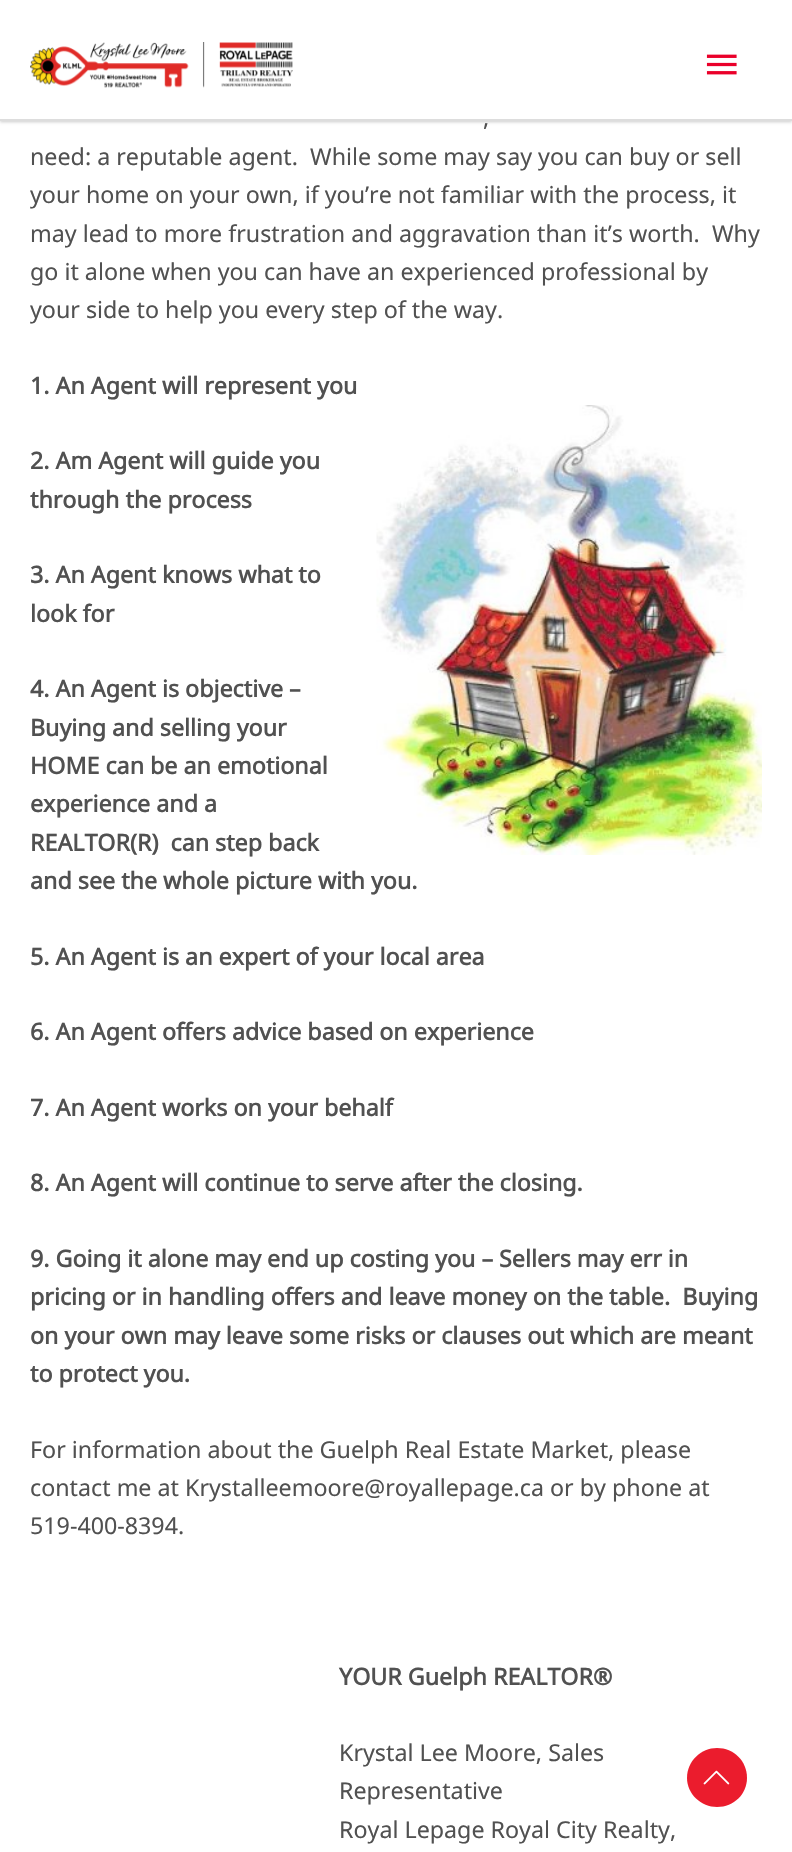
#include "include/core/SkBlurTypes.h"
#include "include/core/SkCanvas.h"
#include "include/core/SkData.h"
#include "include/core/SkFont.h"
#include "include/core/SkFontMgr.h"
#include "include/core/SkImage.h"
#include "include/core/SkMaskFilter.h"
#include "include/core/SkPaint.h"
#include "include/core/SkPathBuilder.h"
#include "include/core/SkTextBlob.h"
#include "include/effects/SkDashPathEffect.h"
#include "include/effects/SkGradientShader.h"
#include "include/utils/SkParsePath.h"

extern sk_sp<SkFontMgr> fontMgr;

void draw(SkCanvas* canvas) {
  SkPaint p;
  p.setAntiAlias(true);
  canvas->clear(SK_ColorWHITE);
  p.setColor(SkColorSetARGB(51, 0, 0, 0));
  p.setMaskFilter(SkMaskFilter::MakeBlur(kNormal_SkBlurStyle, 1.5f));
  canvas->drawRect(SkRect::MakeLTRB(0, 2, 792, 122), p);
  p.setMaskFilter(nullptr);
  p.setColor(SK_ColorWHITE);
  canvas->drawRect(SkRect::MakeLTRB(0, 0, 792, 119), p);
  p.setColor(SkColorSetRGB(221, 221, 221));
  canvas->drawRect(SkRect::MakeLTRB(0, 119, 792, 121), p);
  canvas->drawImageRect(SkImages::DeferredFromEncodedData(SkData::MakeFromFileName("images/1.png")), SkRect::MakeLTRB(30, 42, 293, 88), SkSamplingOptions());
  canvas->drawImageRect(SkImages::DeferredFromEncodedData(SkData::MakeFromFileName("images/2.png")), SkRect::MakeLTRB(706, 54, 737, 75), SkSamplingOptions());
  canvas->drawImageRect(SkImages::DeferredFromEncodedData(SkData::MakeFromFileName("images/3.png")), SkRect::MakeLTRB(376, 405, 762, 855), SkSamplingOptions());
  p.setColor(SkColorSetRGB(235, 28, 45));
  canvas->drawPath(SkPathBuilder().moveTo(717, 1807).cubicTo(701, 1807, 687, 1794, 687, 1778).cubicTo(687, 1761, 701, 1748, 717, 1748).cubicTo(734, 1748, 747, 1761, 747, 1778).cubicTo(747, 1794, 734, 1807, 717, 1807).close().detach(), p);
  canvas->drawImageRect(SkImages::DeferredFromEncodedData(SkData::MakeFromFileName("images/4.png")), SkRect::MakeLTRB(703, 1770, 730, 1785), SkSamplingOptions());
  SkFont font1(fontMgr->matchFamilyStyle("Noto Sans", SkFontStyle::Normal()), 23.25f);
  font1.setSubpixel(true);
  p.setColor(SkColorSetRGB(81, 81, 81));
  canvas->drawString(",", 483, 126, font1, p);
  canvas->drawString("need: a reputable agent.  While some may say you can buy or sell", 30, 165, font1, p);
  canvas->drawString("your home on your own, if you’re not familiar with the process, it", 30, 203, font1, p);
  canvas->drawString("may lead to more frustration and aggravation than it’s worth.  Why", 30, 242, font1, p);
  canvas->drawString("go it alone when you can have an experienced professional by", 30, 280, font1, p);
  canvas->drawString("your side to help you every step of the way.", 30, 318, font1, p);
  SkFont font2(fontMgr->matchFamilyStyle("Noto Sans", SkFontStyle::Bold()), 23.25f);
  font2.setSubpixel(true);
  canvas->drawString("1. An Agent will represent you", 30, 394, font2, p);
  canvas->drawString("2. Am Agent will guide you", 30, 469, font2, p);
  canvas->drawString("through the process", 30, 508, font2, p);
  canvas->drawString("3. An Agent knows what to", 30, 583, font2, p);
  canvas->drawString("look for", 30, 622, font2, p);
  canvas->drawString("4. An Agent is objective –", 30, 697, font2, p);
  canvas->drawString("Buying and selling your", 30, 736, font2, p);
  canvas->drawString("HOME can be an emotional", 30, 774, font2, p);
  canvas->drawString("experience and a", 30, 812, font2, p);
  canvas->drawString("REALTOR(R)  can step back", 30, 851, font2, p);
  canvas->drawString("and see the whole picture with you.", 30, 889, font2, p);
  canvas->drawString("5. An Agent is an expert of your local area", 30, 965, font2, p);
  canvas->drawString("6. An Agent offers advice based on experience", 30, 1040, font2, p);
  canvas->drawString("7. An Agent works on your behalf", 30, 1116, font2, p);
  canvas->drawString("8. An Agent will continue to serve after the closing.", 30, 1191, font2, p);
  canvas->drawString("9. Going it alone may end up costing you – Sellers may err in", 30, 1267, font2, p);
  canvas->drawString("pricing or in handling offers and leave money on the table.  Buying", 30, 1305, font2, p);
  canvas->drawString("on your own may leave some risks or clauses out which are meant", 30, 1344, font2, p);
  canvas->drawString("to protect you.", 30, 1382, font2, p);
  canvas->drawString("For information about the Guelph Real Estate Market, please", 30, 1458, font1, p);
  canvas->drawString("contact me at Krystalleemoore@royallepage.ca or by phone at", 30, 1496, font1, p);
  canvas->drawString("519-400-8394.", 30, 1534, font1, p);
  canvas->drawString("YOUR Guelph REALTOR®", 339, 1685, font2, p);
  canvas->drawString("Krystal Lee Moore, Sales", 339, 1761, font1, p);
  canvas->drawString("Representative", 339, 1799, font1, p);
  canvas->drawString("Royal Lepage Royal City Realty,", 339, 1838, font1, p);
}
